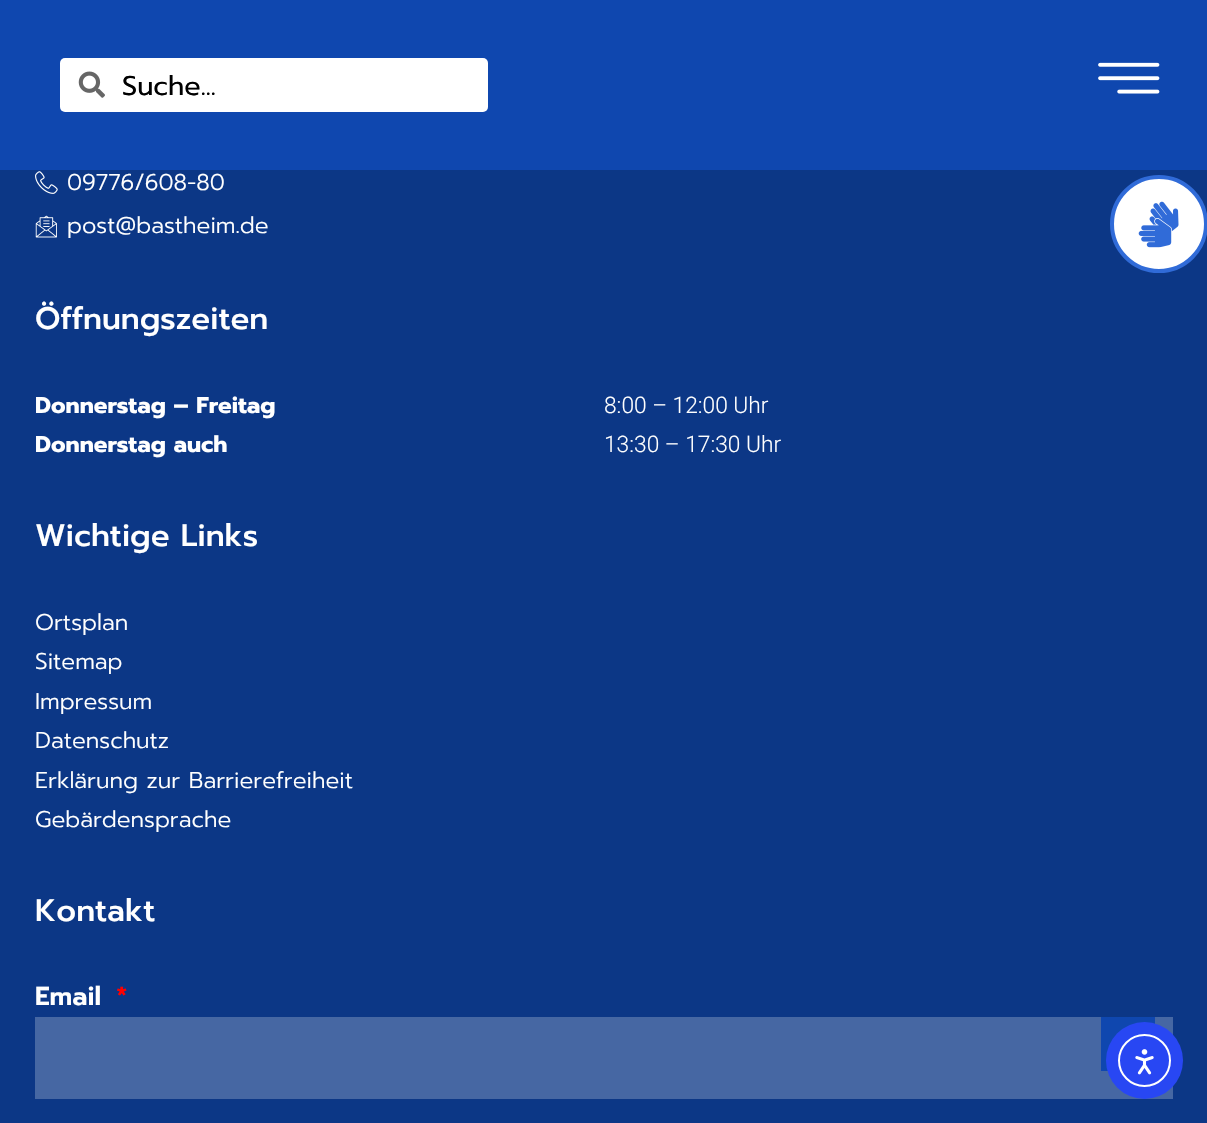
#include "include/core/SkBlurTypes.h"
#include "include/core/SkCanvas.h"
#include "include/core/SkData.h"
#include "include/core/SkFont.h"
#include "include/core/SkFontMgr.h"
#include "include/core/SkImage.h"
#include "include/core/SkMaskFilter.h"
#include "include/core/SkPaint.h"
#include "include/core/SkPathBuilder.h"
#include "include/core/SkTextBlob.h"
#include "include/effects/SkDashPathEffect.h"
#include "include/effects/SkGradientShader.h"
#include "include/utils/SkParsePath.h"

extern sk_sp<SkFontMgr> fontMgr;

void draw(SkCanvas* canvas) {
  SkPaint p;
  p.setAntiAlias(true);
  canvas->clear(SkColorSetRGB(12, 55, 134));
  p.setColor(SkColorSetRGB(15, 71, 175));
  canvas->drawRect(SkRect::MakeLTRB(0, 0, 1207, 170), p);
  p.setColor(SK_ColorWHITE);
  canvas->drawRoundRect(SkRect::MakeLTRB(60, 58, 488, 112), 5, 5, p);
  canvas->drawImageRect(SkImages::DeferredFromEncodedData(SkData::MakeFromFileName("images/1.png")), SkRect::MakeLTRB(78, 71, 105, 98), SkSamplingOptions());
  canvas->drawImageRect(SkImages::DeferredFromEncodedData(SkData::MakeFromFileName("images/2.png")), SkRect::MakeLTRB(1098, 62, 1160, 94), SkSamplingOptions());
  canvas->drawCircle(1159, 224, 47, p);
  p.setStyle(SkPaint::kStroke_Style);
  p.setStrokeWidth(4);
  p.setColor(SkColorSetRGB(48, 107, 216));
  canvas->drawCircle(1159, 224, 47, p);
  canvas->drawImageRect(SkImages::DeferredFromEncodedData(SkData::MakeFromFileName("images/3.png")), SkRect::MakeLTRB(1138, 201, 1179, 248), SkSamplingOptions());
  canvas->drawImageRect(SkImages::DeferredFromEncodedData(SkData::MakeFromFileName("images/4.png")), SkRect::MakeLTRB(35, 171, 58, 194), SkSamplingOptions());
  canvas->drawImageRect(SkImages::DeferredFromEncodedData(SkData::MakeFromFileName("images/5.png")), SkRect::MakeLTRB(35, 215, 57, 238), SkSamplingOptions());
  p.setStyle(SkPaint::kFill_Style);
  p.setColor(SkColorSetRGB(70, 103, 163));
  canvas->drawRect(SkRect::MakeLTRB(35, 1017, 1173, 1099), p);
  p.setColor(SkColorSetRGB(15, 71, 175));
  canvas->drawRect(SkRect::MakeLTRB(1101, 1017, 1155, 1071), p);
  p.setColor(SkColorSetRGB(40, 71, 243));
  canvas->drawCircle(1144.5f, 1060.5f, 38.5f, p);
  p.setStyle(SkPaint::kStroke_Style);
  p.setStrokeWidth(2);
  p.setColor(SK_ColorWHITE);
  canvas->drawCircle(1144.5f, 1060.5f, 25.5f, p);
  canvas->drawImageRect(SkImages::DeferredFromEncodedData(SkData::MakeFromFileName("images/6.png")), SkRect::MakeLTRB(1135, 1049, 1154, 1075), SkSamplingOptions());
  SkFont font1(fontMgr->matchFamilyStyle("Prompt", SkFontStyle::Normal()), 27);
  font1.setSubpixel(true);
  p.setStyle(SkPaint::kFill_Style);
  p.setColor(SK_ColorBLACK);
  canvas->drawString("Suche...", 122, 95, font1, p);
  SkFont font2(fontMgr->matchFamilyStyle("Prompt", SkFontStyle(300, SkFontStyle::kNormal_Width, SkFontStyle::kUpright_Slant)), 22.75f);
  font2.setSubpixel(true);
  p.setColor(SK_ColorWHITE);
  canvas->drawString("09776/608-80", 67, 190, font2, p);
  canvas->drawString("post@bastheim.de", 67, 233, font2, p);
  SkFont font3(fontMgr->matchFamilyStyle("Prompt", SkFontStyle(500, SkFontStyle::kNormal_Width, SkFontStyle::kUpright_Slant)), 31);
  font3.setSubpixel(true);
  canvas->drawString("Öffnungszeiten", 35, 329, font3, p);
  SkFont font4(fontMgr->matchFamilyStyle("Prompt", SkFontStyle::Bold()), 22.75f);
  font4.setSubpixel(true);
  canvas->drawString("Donnerstag – Freitag", 35, 413, font4, p);
  SkFont font5(fontMgr->matchFamilyStyle("Roboto", SkFontStyle(300, SkFontStyle::kNormal_Width, SkFontStyle::kUpright_Slant)), 22.75f);
  font5.setSubpixel(true);
  canvas->drawString("8:00 – 12:00 Uhr", 604, 413, font5, p);
  canvas->drawString("Donnerstag auch", 35, 452, font4, p);
  canvas->drawString("13:30 – 17:30 Uhr", 604, 452, font5, p);
  canvas->drawString("Wichtige Links", 35, 546, font3, p);
  canvas->drawString("Ortsplan", 35, 630, font2, p);
  canvas->drawString("Sitemap", 35, 669, font2, p);
  canvas->drawString("Impressum", 35, 709, font2, p);
  canvas->drawString("Datenschutz", 35, 748, font2, p);
  canvas->drawString("Erklärung zur Barrierefreiheit", 35, 788, font2, p);
  canvas->drawString("Gebärdensprache", 35, 827, font2, p);
  canvas->drawString("Kontakt", 35, 921, font3, p);
  SkFont font6(fontMgr->matchFamilyStyle("Prompt", SkFontStyle(600, SkFontStyle::kNormal_Width, SkFontStyle::kUpright_Slant)), 26);
  font6.setSubpixel(true);
  canvas->drawString("Email", 35, 1005, font6, p);
  p.setColor(SkColorSetRGB(255, 0, 0));
  canvas->drawString("*", 116, 1005, font6, p);
}
